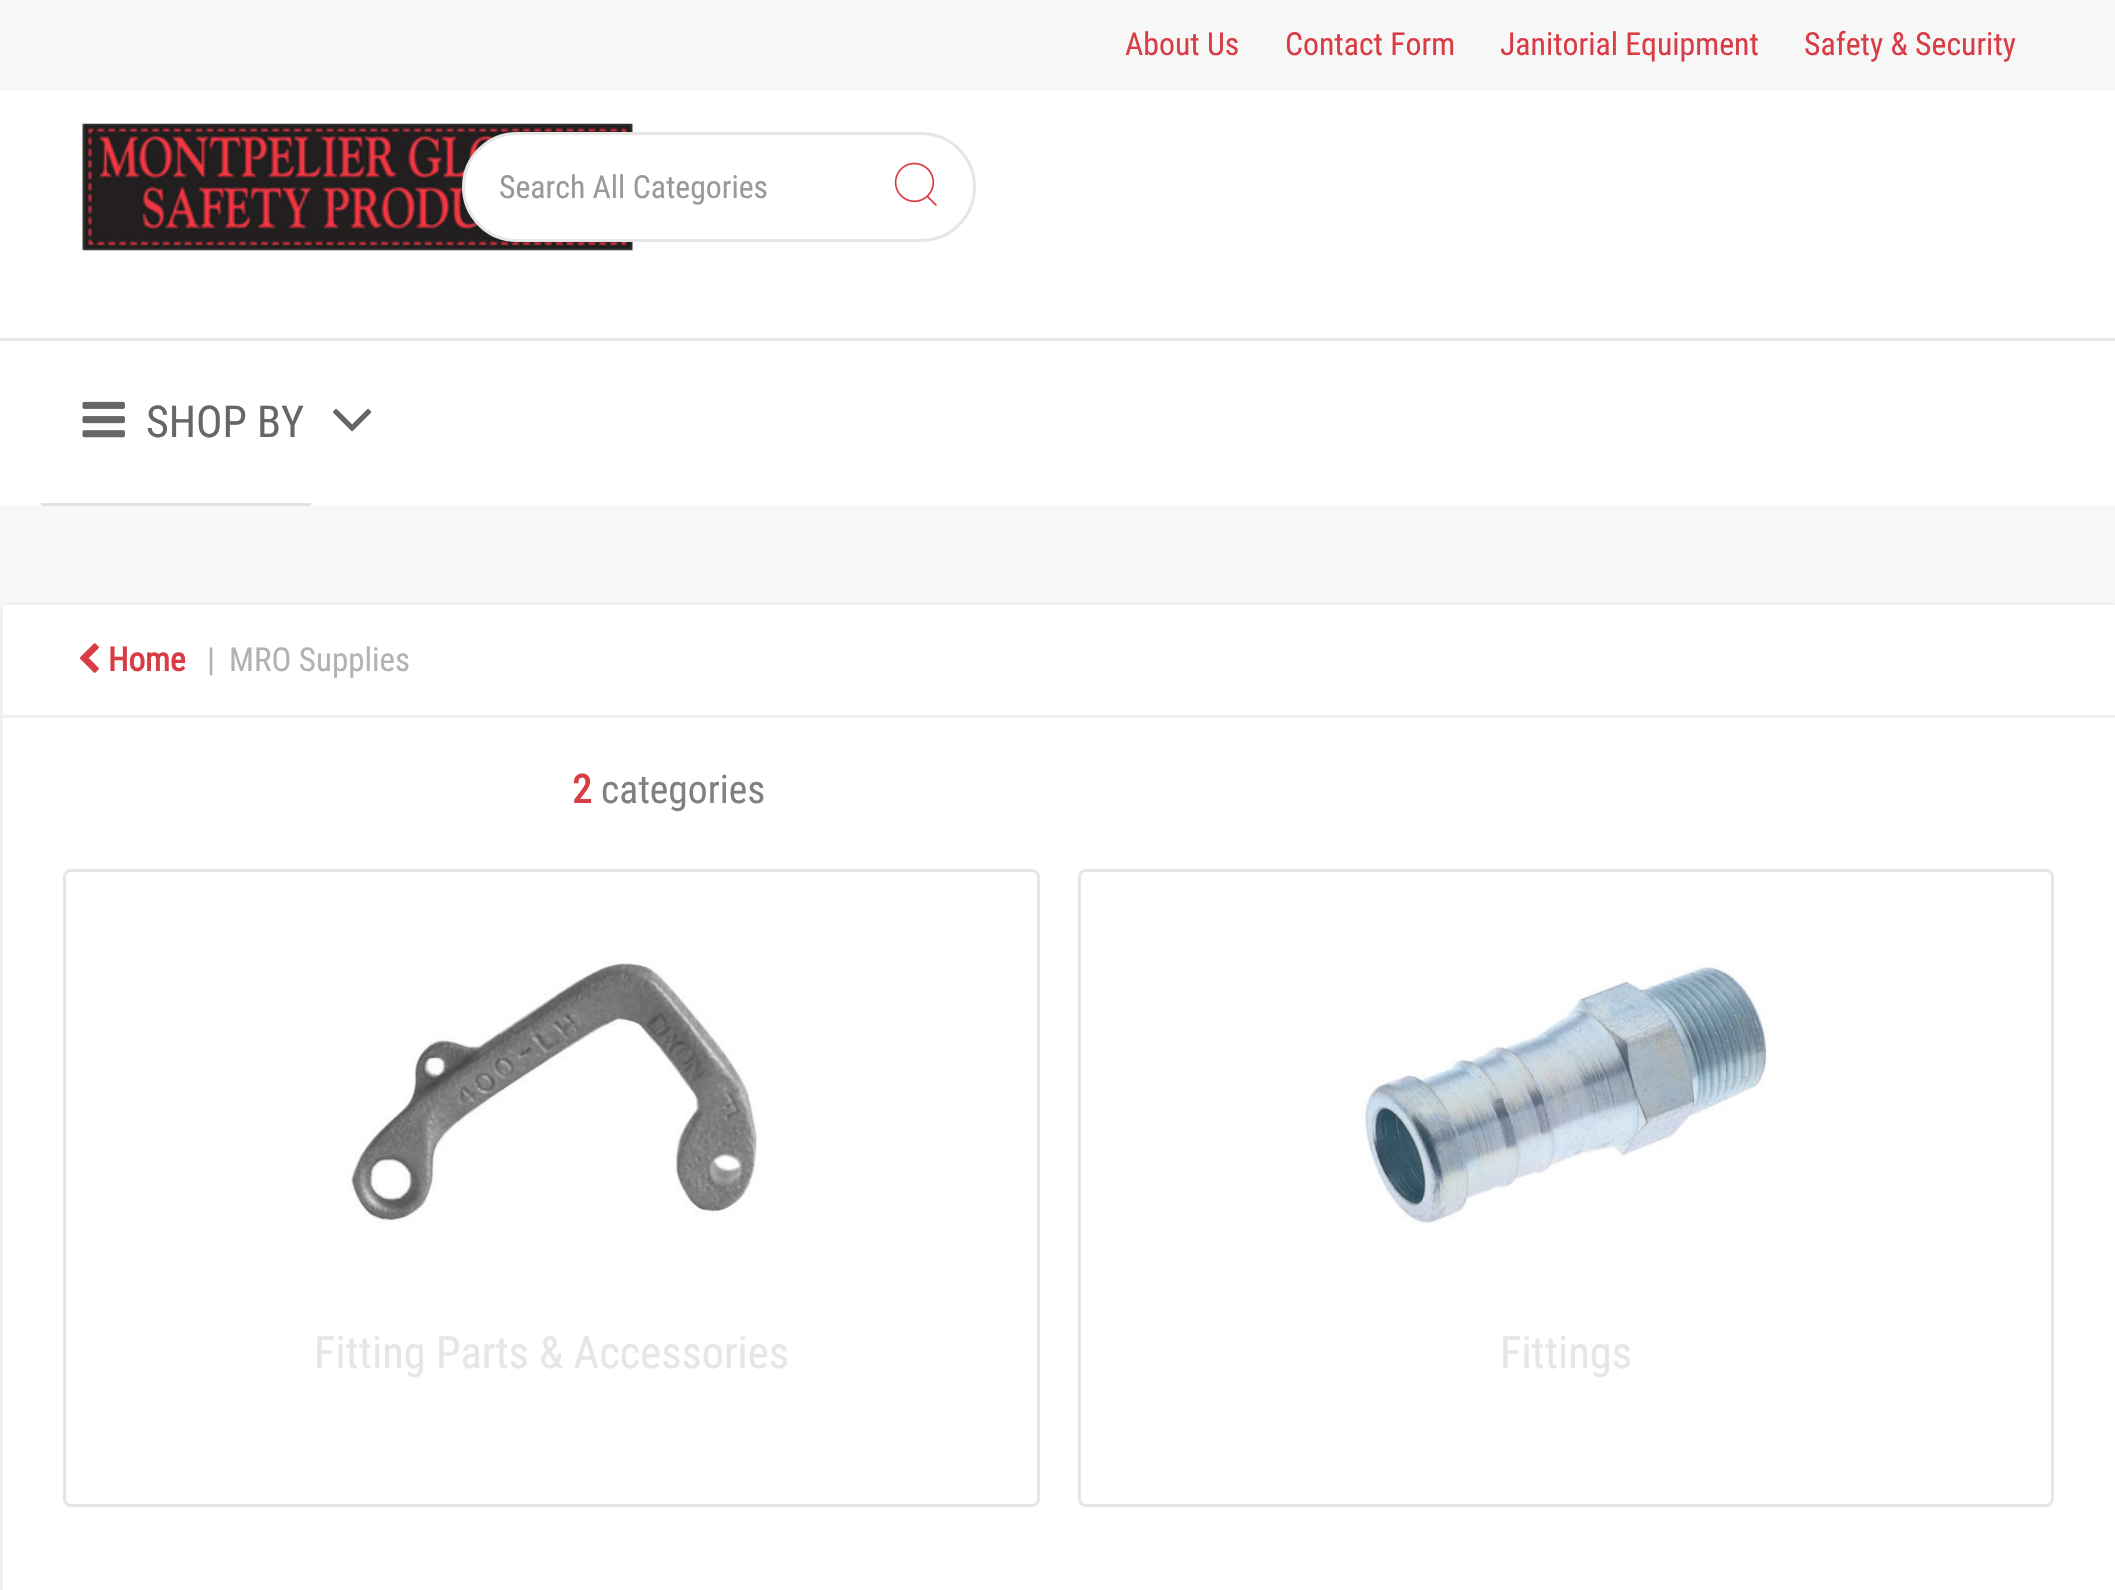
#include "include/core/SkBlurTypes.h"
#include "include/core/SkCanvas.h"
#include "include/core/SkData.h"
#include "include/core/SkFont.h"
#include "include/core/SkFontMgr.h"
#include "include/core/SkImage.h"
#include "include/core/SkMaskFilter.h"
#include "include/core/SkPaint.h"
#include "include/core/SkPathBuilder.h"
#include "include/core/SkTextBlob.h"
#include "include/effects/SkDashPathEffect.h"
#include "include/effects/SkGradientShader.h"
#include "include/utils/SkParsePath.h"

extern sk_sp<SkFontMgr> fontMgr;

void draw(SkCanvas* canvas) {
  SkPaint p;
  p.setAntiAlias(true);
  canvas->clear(SkColorSetRGB(247, 247, 247));
  p.setColor(SK_ColorWHITE);
  canvas->drawRect(SkRect::MakeLTRB(0, 91, 2115, 506), p);
  canvas->drawImageRect(SkImages::DeferredFromEncodedData(SkData::MakeFromFileName("images/1.png")), SkRect::MakeLTRB(82, 123, 633, 251), SkSamplingOptions());
  canvas->drawRoundRect(SkRect::MakeLTRB(463.5f, 133.5f, 974.5f, 240.5f), 53.5f, 53.5f, p);
  p.setStyle(SkPaint::kStroke_Style);
  p.setStrokeWidth(3);
  p.setColor(SkColorSetRGB(230, 230, 230));
  canvas->drawRoundRect(SkRect::MakeLTRB(463.5f, 133.5f, 974.5f, 240.5f), 53.5f, 53.5f, p);
  canvas->drawImageRect(SkImages::DeferredFromEncodedData(SkData::MakeFromFileName("images/2.png")), SkRect::MakeLTRB(894, 162, 937, 206), SkSamplingOptions());
  p.setStyle(SkPaint::kFill_Style);
  canvas->drawRect(SkRect::MakeLTRB(0, 338, 2115, 341), p);
  p.setColor(SkColorSetRGB(226, 226, 226));
  canvas->drawRect(SkRect::MakeLTRB(41, 503, 311, 506), p);
  canvas->drawImageRect(SkImages::DeferredFromEncodedData(SkData::MakeFromFileName("images/3.png")), SkRect::MakeLTRB(82, 401, 125, 438), SkSamplingOptions());
  canvas->drawImageRect(SkImages::DeferredFromEncodedData(SkData::MakeFromFileName("images/4.png")), SkRect::MakeLTRB(333, 408, 372, 432), SkSamplingOptions());
  p.setStyle(SkPaint::kStroke_Style);
  p.setColor(SkColorSetRGB(240, 240, 240));
  canvas->drawRoundRect(SkRect::MakeLTRB(1.5f, 603.5f, 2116.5f, 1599.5f), 6.5f, 6.5f, p);
  p.setStyle(SkPaint::kFill_Style);
  p.setColor(SK_ColorWHITE);
  canvas->drawRect(SkRect::MakeLTRB(3, 605, 2115, 1590), p);
  p.setColor(SkColorSetRGB(240, 240, 240));
  canvas->drawRect(SkRect::MakeLTRB(3, 715, 2115, 718), p);
  canvas->drawImageRect(SkImages::DeferredFromEncodedData(SkData::MakeFromFileName("images/5.png")), SkRect::MakeLTRB(79, 643, 99, 673), SkSamplingOptions());
  p.setStyle(SkPaint::kStroke_Style);
  p.setColor(SkColorSetRGB(230, 230, 230));
  canvas->drawRoundRect(SkRect::MakeLTRB(64.5f, 870.5f, 1038.5f, 1505.5f), 6.5f, 6.5f, p);
  canvas->drawImageRect(SkImages::DeferredFromEncodedData(SkData::MakeFromFileName("images/6.png")), SkRect::MakeLTRB(346, 961, 759, 1223), SkSamplingOptions());
  canvas->drawRoundRect(SkRect::MakeLTRB(1079.5f, 870.5f, 2052.5f, 1505.5f), 6.5f, 6.5f, p);
  canvas->drawImageRect(SkImages::DeferredFromEncodedData(SkData::MakeFromFileName("images/7.png")), SkRect::MakeLTRB(1361, 964, 1771, 1226), SkSamplingOptions());
  SkFont font1(fontMgr->matchFamilyStyle("Roboto Condensed", SkFontStyle::Normal()), 31.75f);
  font1.setSubpixel(true);
  p.setStyle(SkPaint::kFill_Style);
  p.setColor(SkColorSetRGB(217, 60, 69));
  canvas->drawString("About Us", 1125, 55, font1, p);
  canvas->drawString("Contact Form", 1285, 55, font1, p);
  canvas->drawString("Janitorial Equipment", 1500, 55, font1, p);
  canvas->drawString("Safety & Security", 1804, 55, font1, p);
  p.setColor(SkColorSetRGB(153, 153, 153));
  canvas->drawString("Search All Categories", 499, 198, font1, p);
  SkFont font2(fontMgr->matchFamilyStyle("Roboto Condensed", SkFontStyle::Normal()), 44);
  font2.setSubpixel(true);
  p.setColor(SkColorSetRGB(102, 102, 102));
  canvas->drawString("SHOP BY", 146, 437, font2, p);
  SkFont font3(fontMgr->matchFamilyStyle("Roboto Condensed", SkFontStyle::Bold()), 33);
  font3.setSubpixel(true);
  p.setColor(SkColorSetRGB(217, 60, 69));
  canvas->drawString("Home", 108, 671, font3, p);
  SkFont font4(fontMgr->matchFamilyStyle("Roboto Condensed", SkFontStyle::Normal()), 33);
  font4.setSubpixel(true);
  p.setColor(SkColorSetRGB(178, 178, 178));
  canvas->drawString("|", 207, 671, font4, p);
  canvas->drawString("MRO Supplies", 229, 671, font4, p);
  SkFont font5(fontMgr->matchFamilyStyle("Roboto Condensed", SkFontStyle::Bold()), 39.5f);
  font5.setSubpixel(true);
  p.setColor(SkColorSetRGB(217, 60, 69));
  canvas->drawString("2", 572, 803, font5, p);
  SkFont font6(fontMgr->matchFamilyStyle("Roboto Condensed", SkFontStyle::Normal()), 39.5f);
  font6.setSubpixel(true);
  p.setColor(SkColorSetRGB(128, 128, 128));
  canvas->drawString("categories", 601, 803, font6, p);
  SkFont font7(fontMgr->matchFamilyStyle("Roboto Condensed", SkFontStyle::Normal()), 44.5f);
  font7.setSubpixel(true);
  p.setColor(SkColorSetRGB(230, 230, 230));
  canvas->drawString("Fitting Parts & Accessories", 314, 1368, font7, p);
  canvas->drawString("Fittings", 1500, 1368, font7, p);
}
